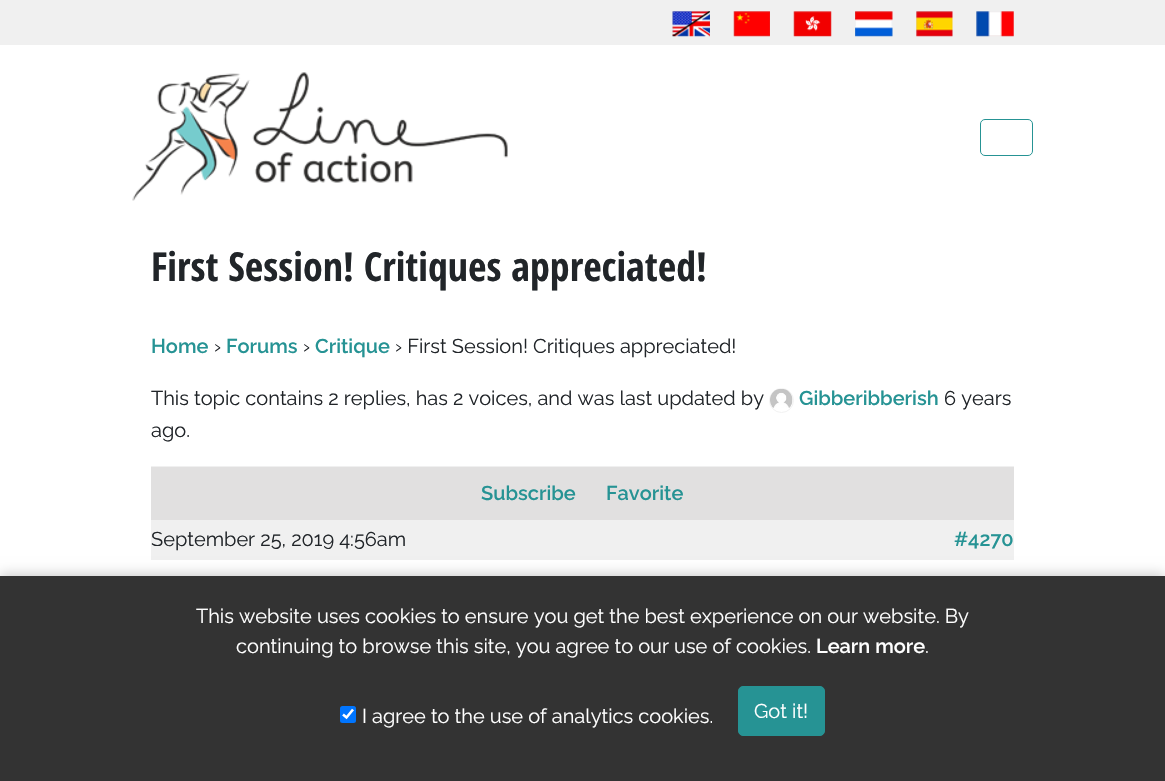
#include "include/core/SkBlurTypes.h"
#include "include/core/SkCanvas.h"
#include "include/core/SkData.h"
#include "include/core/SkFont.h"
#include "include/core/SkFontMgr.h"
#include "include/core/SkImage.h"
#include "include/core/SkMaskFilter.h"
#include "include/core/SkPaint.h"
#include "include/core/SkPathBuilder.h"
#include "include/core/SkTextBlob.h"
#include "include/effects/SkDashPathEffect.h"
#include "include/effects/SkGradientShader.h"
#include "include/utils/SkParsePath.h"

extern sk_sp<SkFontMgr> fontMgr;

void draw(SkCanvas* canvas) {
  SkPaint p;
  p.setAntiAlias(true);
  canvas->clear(SK_ColorWHITE);
  p.setColor(SkColorSetRGB(240, 240, 240));
  canvas->drawRect(SkRect::MakeLTRB(0, 0, 1165, 45), p);
  canvas->drawImageRect(SkImages::DeferredFromEncodedData(SkData::MakeFromFileName("images/1.png")), SkRect::MakeLTRB(672, 11, 710, 37), SkSamplingOptions());
  canvas->drawImageRect(SkImages::DeferredFromEncodedData(SkData::MakeFromFileName("images/2.png")), SkRect::MakeLTRB(733, 11, 770, 37), SkSamplingOptions());
  canvas->drawImageRect(SkImages::DeferredFromEncodedData(SkData::MakeFromFileName("images/3.png")), SkRect::MakeLTRB(793, 11, 832, 37), SkSamplingOptions());
  canvas->drawImageRect(SkImages::DeferredFromEncodedData(SkData::MakeFromFileName("images/4.png")), SkRect::MakeLTRB(855, 11, 893, 37), SkSamplingOptions());
  canvas->drawImageRect(SkImages::DeferredFromEncodedData(SkData::MakeFromFileName("images/5.png")), SkRect::MakeLTRB(916, 11, 953, 37), SkSamplingOptions());
  canvas->drawImageRect(SkImages::DeferredFromEncodedData(SkData::MakeFromFileName("images/6.png")), SkRect::MakeLTRB(976, 11, 1014, 37), SkSamplingOptions());
  canvas->drawImageRect(SkImages::DeferredFromEncodedData(SkData::MakeFromFileName("images/7.png")), SkRect::MakeLTRB(132, 72, 508, 201), SkSamplingOptions());
  p.setStyle(SkPaint::kStroke_Style);
  p.setStrokeWidth(1);
  p.setColor(SkColorSetRGB(38, 147, 148));
  canvas->drawRoundRect(SkRect::MakeLTRB(980.5f, 119.5f, 1032.5f, 155.5f), 4.5f, 4.5f, p);
  p.setColor(SkColorSetRGB(242, 242, 242));
  canvas->drawCircle(781.5f, 400.5f, 12, p);
  canvas->drawImageRect(SkImages::DeferredFromEncodedData(SkData::MakeFromFileName("images/8.png")), SkRect::MakeLTRB(770, 389, 793, 408), SkSamplingOptions());
  p.setStyle(SkPaint::kFill_Style);
  p.setColor(SkColorSetRGB(225, 224, 224));
  canvas->drawRect(SkRect::MakeLTRB(151, 467, 1014, 520), p);
  p.setColor(SkColorSetRGB(240, 240, 240));
  canvas->drawRect(SkRect::MakeLTRB(151, 466, 1014, 467), p);
  canvas->drawRect(SkRect::MakeLTRB(151, 520, 1014, 560), p);
  p.setColor(SkColorSetARGB(51, 0, 0, 0));
  p.setMaskFilter(SkMaskFilter::MakeBlur(kNormal_SkBlurStyle, 6));
  canvas->drawRect(SkRect::MakeLTRB(0, 574, 1165, 779), p);
  p.setMaskFilter(nullptr);
  p.setColor(SkColorSetRGB(51, 51, 51));
  canvas->drawRect(SkRect::MakeLTRB(0, 576, 1165, 781), p);
  p.setColor(SkColorSetRGB(0, 117, 255));
  canvas->drawRoundRect(SkRect::MakeLTRB(340, 706, 356, 723), 2.5f, 2.5f, p);
  p.setStyle(SkPaint::kStroke_Style);
  p.setStrokeWidth(2.6f);
  p.setColor(SK_ColorWHITE);
  canvas->drawPath(SkPathBuilder().moveTo(343, 714.5f).lineTo(346.5f, 717.5f).lineTo(353, 709.5f).detach(), p);
  p.setStyle(SkPaint::kFill_Style);
  p.setColor(SkColorSetRGB(38, 147, 148));
  canvas->drawRoundRect(SkRect::MakeLTRB(738.5f, 686.5f, 824.5f, 735.5f), 4.5f, 4.5f, p);
  p.setStyle(SkPaint::kStroke_Style);
  p.setStrokeWidth(1);
  canvas->drawRoundRect(SkRect::MakeLTRB(738.5f, 686.5f, 824.5f, 735.5f), 4.5f, 4.5f, p);
  SkFont font1(fontMgr->matchFamilyStyle("Open Sans Condensed", SkFontStyle::Bold()), 40);
  font1.setSubpixel(true);
  p.setStyle(SkPaint::kFill_Style);
  p.setColor(SkColorSetRGB(33, 37, 41));
  canvas->drawString("First Session! Critiques appreciated!", 151, 281, font1, p);
  SkFont font2(fontMgr->matchFamilyStyle("Raleway", SkFontStyle(600, SkFontStyle::kNormal_Width, SkFontStyle::kUpright_Slant)), 20);
  font2.setSubpixel(true);
  p.setColor(SkColorSetRGB(38, 147, 148));
  canvas->drawString("Home", 151, 353, font2, p);
  SkFont font3(fontMgr->matchFamilyStyle("Raleway", SkFontStyle::Normal()), 20);
  font3.setSubpixel(true);
  p.setColor(SkColorSetRGB(33, 37, 41));
  canvas->drawString("›", 214, 353, font3, p);
  p.setColor(SkColorSetRGB(38, 147, 148));
  canvas->drawString("Forums", 226, 353, font2, p);
  p.setColor(SkColorSetRGB(33, 37, 41));
  canvas->drawString("›", 303, 353, font3, p);
  p.setColor(SkColorSetRGB(38, 147, 148));
  canvas->drawString("Critique", 315, 353, font2, p);
  p.setColor(SkColorSetRGB(33, 37, 41));
  canvas->drawString("› First Session! Critiques appreciated!", 395, 353, font3, p);
  canvas->drawString("This topic contains 2 replies, has 2 voices, and was last updated by", 151, 405, font3, p);
  p.setColor(SkColorSetRGB(38, 147, 148));
  canvas->drawString("Gibberibberish", 799, 405, font2, p);
  p.setColor(SkColorSetRGB(33, 37, 41));
  canvas->drawString("6 years", 944, 405, font3, p);
  canvas->drawString("ago.", 151, 437, font3, p);
  p.setColor(SkColorSetRGB(38, 147, 148));
  canvas->drawString("Subscribe", 481, 500, font2, p);
  canvas->drawString("Favorite", 606, 500, font2, p);
  p.setColor(SkColorSetRGB(33, 37, 41));
  canvas->drawString("September 25, 2019 4:56am", 151, 546, font3, p);
  p.setColor(SkColorSetRGB(38, 147, 148));
  canvas->drawString("#4270", 954, 546, font2, p);
  p.setColor(SK_ColorWHITE);
  canvas->drawString("This website uses cookies to ensure you get the best experience on our website. By", 196, 623, font3, p);
  canvas->drawString("continuing to browse this site, you agree to our use of cookies.", 236, 653, font3, p);
  canvas->drawString("Learn more", 816, 653, font2, p);
  canvas->drawString(".", 925, 653, font3, p);
  canvas->drawString("I agree to the use of analytics cookies.", 362, 723, font3, p);
  canvas->drawString("Got it!", 754, 718, font3, p);
}
